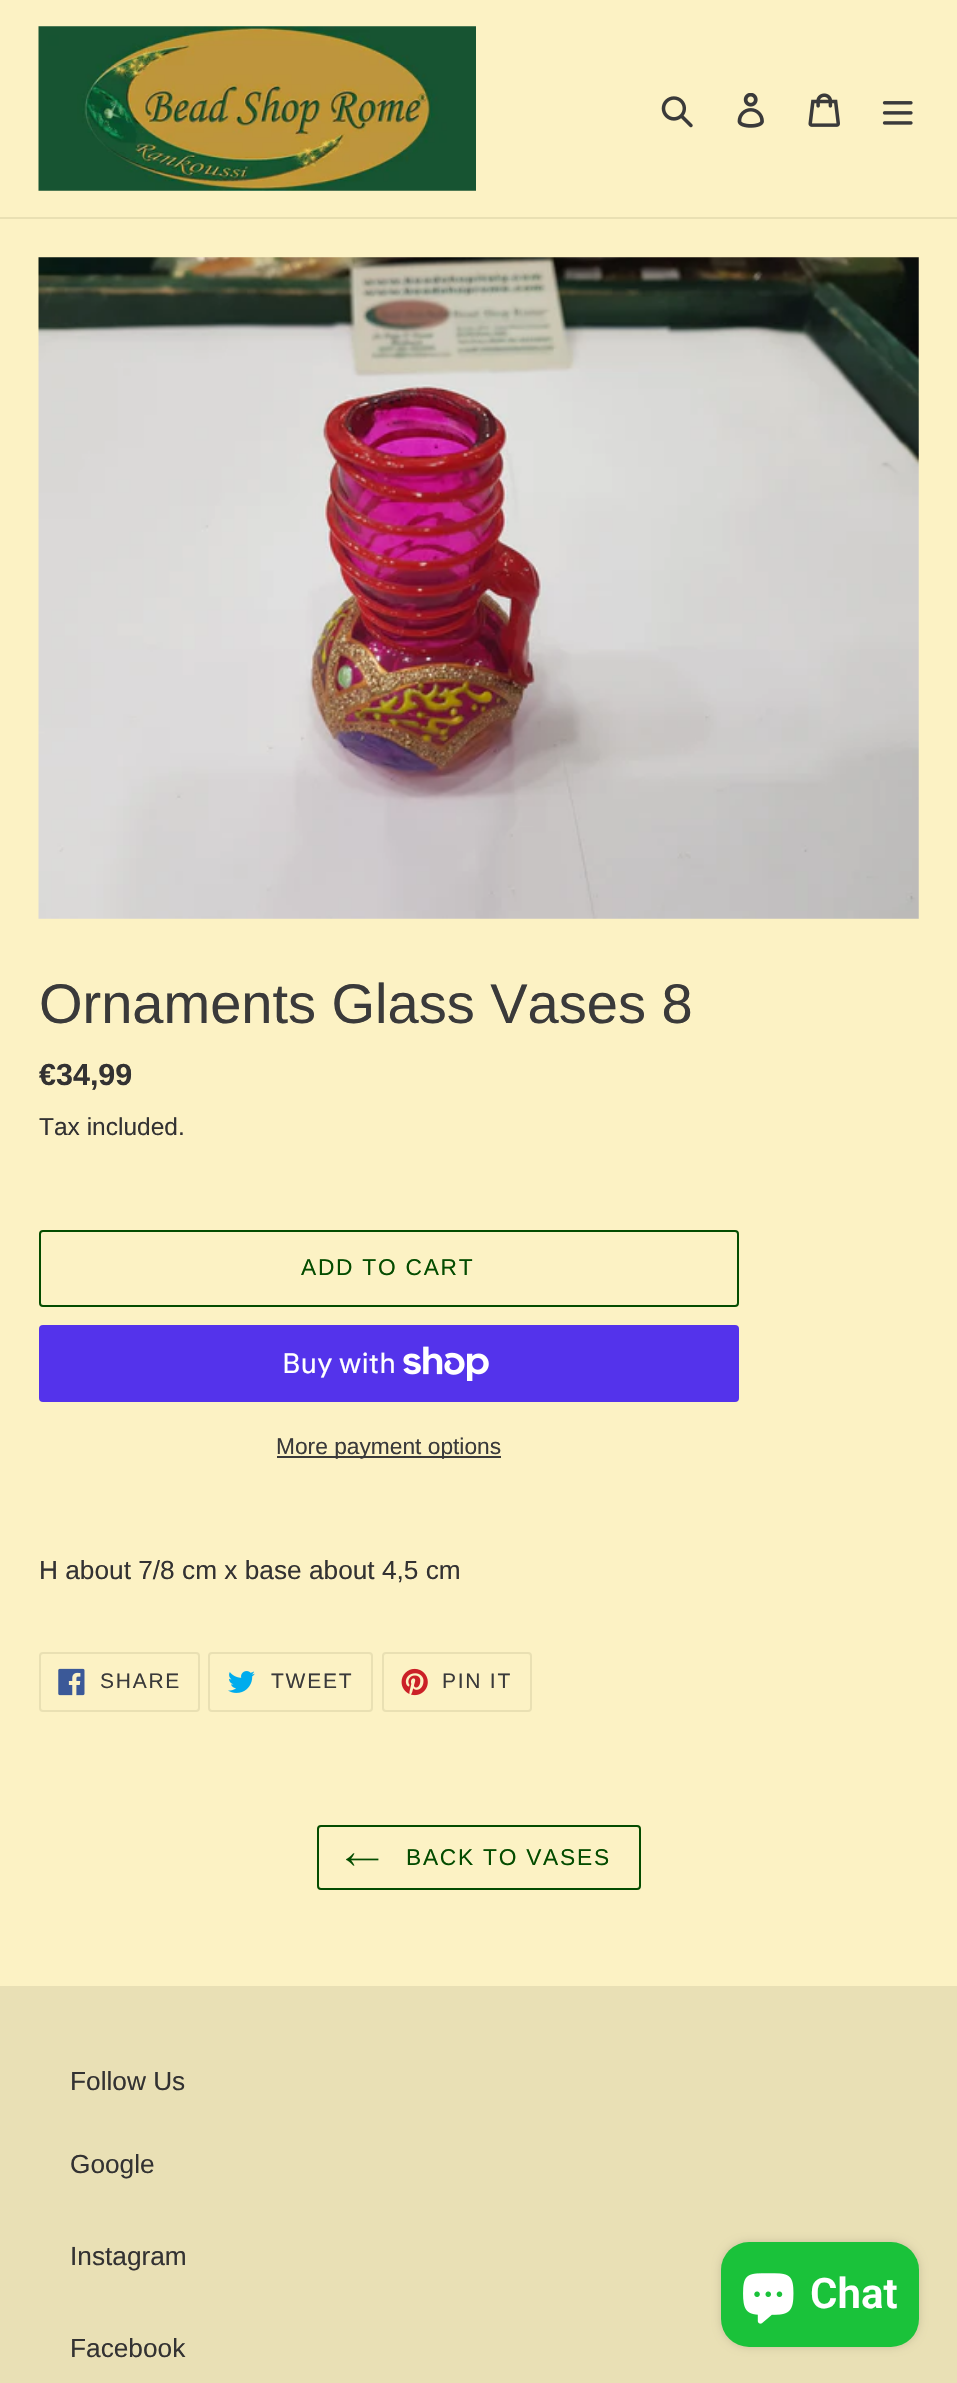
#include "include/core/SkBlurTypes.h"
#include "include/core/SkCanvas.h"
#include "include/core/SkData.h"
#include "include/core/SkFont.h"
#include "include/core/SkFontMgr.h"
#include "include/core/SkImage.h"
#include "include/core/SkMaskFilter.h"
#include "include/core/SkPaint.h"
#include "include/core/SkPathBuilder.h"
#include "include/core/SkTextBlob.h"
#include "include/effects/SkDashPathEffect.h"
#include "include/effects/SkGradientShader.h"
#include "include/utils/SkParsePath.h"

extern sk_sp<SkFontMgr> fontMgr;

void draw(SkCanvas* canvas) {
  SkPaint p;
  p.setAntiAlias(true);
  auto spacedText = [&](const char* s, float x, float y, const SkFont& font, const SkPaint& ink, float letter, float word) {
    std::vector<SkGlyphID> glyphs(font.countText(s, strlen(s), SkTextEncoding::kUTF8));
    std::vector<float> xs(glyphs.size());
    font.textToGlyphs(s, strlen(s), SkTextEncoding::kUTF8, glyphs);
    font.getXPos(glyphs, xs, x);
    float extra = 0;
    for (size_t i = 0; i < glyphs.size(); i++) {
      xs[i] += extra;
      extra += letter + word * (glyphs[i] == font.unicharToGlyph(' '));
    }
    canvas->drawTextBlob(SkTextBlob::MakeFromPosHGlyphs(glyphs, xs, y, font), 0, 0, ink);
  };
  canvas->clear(SkColorSetRGB(252, 242, 196));
  p.setColor(SkColorSetRGB(233, 224, 179));
  canvas->drawRect(SkRect::MakeLTRB(0, 217, 957, 219), p);
  canvas->drawImageRect(SkImages::DeferredFromEncodedData(SkData::MakeFromFileName("images/1.png")), SkRect::MakeLTRB(38, 26, 476, 191), SkSamplingOptions());
  canvas->drawImageRect(SkImages::DeferredFromEncodedData(SkData::MakeFromFileName("images/2.png")), SkRect::MakeLTRB(661, 96, 693, 128), SkSamplingOptions());
  canvas->drawImageRect(SkImages::DeferredFromEncodedData(SkData::MakeFromFileName("images/3.png")), SkRect::MakeLTRB(737, 93, 764, 128), SkSamplingOptions());
  canvas->drawImageRect(SkImages::DeferredFromEncodedData(SkData::MakeFromFileName("images/4.png")), SkRect::MakeLTRB(808, 93, 840, 127), SkSamplingOptions());
  canvas->drawImageRect(SkImages::DeferredFromEncodedData(SkData::MakeFromFileName("images/5.png")), SkRect::MakeLTRB(882, 101, 913, 125), SkSamplingOptions());
  canvas->drawImageRect(SkImages::DeferredFromEncodedData(SkData::MakeFromFileName("images/6.png")), SkRect::MakeLTRB(38, 257, 919, 919), SkSamplingOptions());
  p.setStyle(SkPaint::kStroke_Style);
  p.setStrokeWidth(2);
  p.setColor(SkColorSetRGB(4, 76, 0));
  canvas->drawRoundRect(SkRect::MakeLTRB(40, 1231, 738, 1306), 3, 3, p);
  p.setStyle(SkPaint::kFill_Style);
  p.setColor(SkColorSetRGB(84, 51, 235));
  canvas->drawRoundRect(SkRect::MakeLTRB(39, 1325, 739, 1402), 4, 4, p);
  canvas->drawImageRect(SkImages::DeferredFromEncodedData(SkData::MakeFromFileName("images/7.png")), SkRect::MakeLTRB(403, 1346, 489, 1381), SkSamplingOptions());
  p.setColor(SkColorSetRGB(58, 58, 58));
  canvas->drawRect(SkRect::MakeLTRB(277, 1456, 501, 1458), p);
  p.setStyle(SkPaint::kStroke_Style);
  p.setColor(SkColorSetRGB(233, 224, 179));
  canvas->drawRoundRect(SkRect::MakeLTRB(40, 1653, 199, 1711), 3, 3, p);
  canvas->drawImageRect(SkImages::DeferredFromEncodedData(SkData::MakeFromFileName("images/8.png")), SkRect::MakeLTRB(58, 1668, 85, 1696), SkSamplingOptions());
  canvas->drawRoundRect(SkRect::MakeLTRB(209, 1653, 372, 1711), 3, 3, p);
  canvas->drawImageRect(SkImages::DeferredFromEncodedData(SkData::MakeFromFileName("images/9.png")), SkRect::MakeLTRB(228, 1671, 255, 1693), SkSamplingOptions());
  canvas->drawRoundRect(SkRect::MakeLTRB(383, 1653, 531, 1711), 3, 3, p);
  canvas->drawImageRect(SkImages::DeferredFromEncodedData(SkData::MakeFromFileName("images/10.png")), SkRect::MakeLTRB(401, 1668, 428, 1696), SkSamplingOptions());
  p.setColor(SkColorSetRGB(4, 76, 0));
  canvas->drawRoundRect(SkRect::MakeLTRB(318, 1826, 640, 1889), 3, 3, p);
  canvas->drawImageRect(SkImages::DeferredFromEncodedData(SkData::MakeFromFileName("images/11.png")), SkRect::MakeLTRB(346, 1853, 379, 1866), SkSamplingOptions());
  p.setStyle(SkPaint::kFill_Style);
  p.setColor(SkColorSetRGB(233, 224, 181));
  canvas->drawRect(SkRect::MakeLTRB(0, 1986, 957, 2383), p);
  p.setColor(SkColorSetARGB(38, 0, 0, 0));
  p.setMaskFilter(SkMaskFilter::MakeBlur(kNormal_SkBlurStyle, 4.5f));
  canvas->drawRoundRect(SkRect::MakeLTRB(721, 2242, 919, 2347), 28, 28, p);
  p.setMaskFilter(nullptr);
  p.setColor(SkColorSetRGB(26, 194, 58));
  canvas->drawRoundRect(SkRect::MakeLTRB(721, 2242, 919, 2347), 28, 28, p);
  canvas->drawImageRect(SkImages::DeferredFromEncodedData(SkData::MakeFromFileName("images/12.png")), SkRect::MakeLTRB(743, 2273, 794, 2324), SkSamplingOptions());
  SkFont font1(fontMgr->matchFamilyStyle("Liberation Sans", SkFontStyle::Normal()), 56);
  font1.setSubpixel(true);
  p.setColor(SkColorSetRGB(58, 58, 58));
  canvas->drawString("Ornaments Glass Vases 8", 39, 1023, font1, p);
  SkFont font2(fontMgr->matchFamilyStyle("Liberation Sans", SkFontStyle::Bold()), 30.5f);
  font2.setSubpixel(true);
  p.setColor(SkColorSetRGB(51, 50, 50));
  canvas->drawString("€34,99", 39, 1085, font2, p);
  SkFont font3(fontMgr->matchFamilyStyle("Liberation Sans", SkFontStyle::Normal()), 24.5f);
  font3.setSubpixel(true);
  canvas->drawString("Tax included.", 39, 1135, font3, p);
  SkFont font4(fontMgr->matchFamilyStyle("Liberation Sans", SkFontStyle::Normal()), 22.75f);
  font4.setSubpixel(true);
  p.setColor(SkColorSetRGB(4, 76, 0));
  spacedText("ADD TO CART", 301, 1275, font4, p, 1.75f, 0);
  SkFont font5(fontMgr->matchFamilyStyle("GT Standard", SkFontStyle::Normal()), 28);
  font5.setSubpixel(true);
  p.setColor(SK_ColorWHITE);
  canvas->drawString("Buy with", 282, 1373, font5, p);
  p.setColor(SkColorSetRGB(58, 58, 58));
  canvas->drawString("More payment options", 276, 1454, font4, p);
  SkFont font6(fontMgr->matchFamilyStyle("Liberation Sans", SkFontStyle::Normal()), 26.25f);
  font6.setSubpixel(true);
  p.setColor(SkColorSetRGB(51, 50, 50));
  canvas->drawString("H about 7/8 cm x base about 4,5 cm", 39, 1579, font6, p);
  SkFont font7(fontMgr->matchFamilyStyle("Liberation Sans", SkFontStyle::Normal()), 21);
  font7.setSubpixel(true);
  p.setColor(SkColorSetRGB(58, 58, 58));
  spacedText("SHARE", 100, 1688, font7, p, 1.75f, 0);
  spacedText("TWEET", 271, 1688, font7, p, 1.75f, 0);
  spacedText("PIN IT", 442, 1688, font7, p, 1.75f, 0);
  p.setColor(SkColorSetRGB(4, 76, 0));
  spacedText("BACK TO VASES", 406, 1865, font4, p, 1.75f, 0);
  p.setColor(SkColorSetRGB(51, 50, 50));
  canvas->drawString("Follow Us", 70, 2090, font6, p);
  canvas->drawString("Google", 70, 2173, font6, p);
  canvas->drawString("Instagram", 70, 2265, font6, p);
  canvas->drawString("Facebook", 70, 2357, font6, p);
  SkFont font8(fontMgr->matchFamilyStyle("Roboto", SkFontStyle(600, SkFontStyle::kNormal_Width, SkFontStyle::kUpright_Slant)), 42);
  font8.setSubpixel(true);
  p.setColor(SK_ColorWHITE);
  canvas->drawString("Chat", 810, 2308, font8, p);
}
